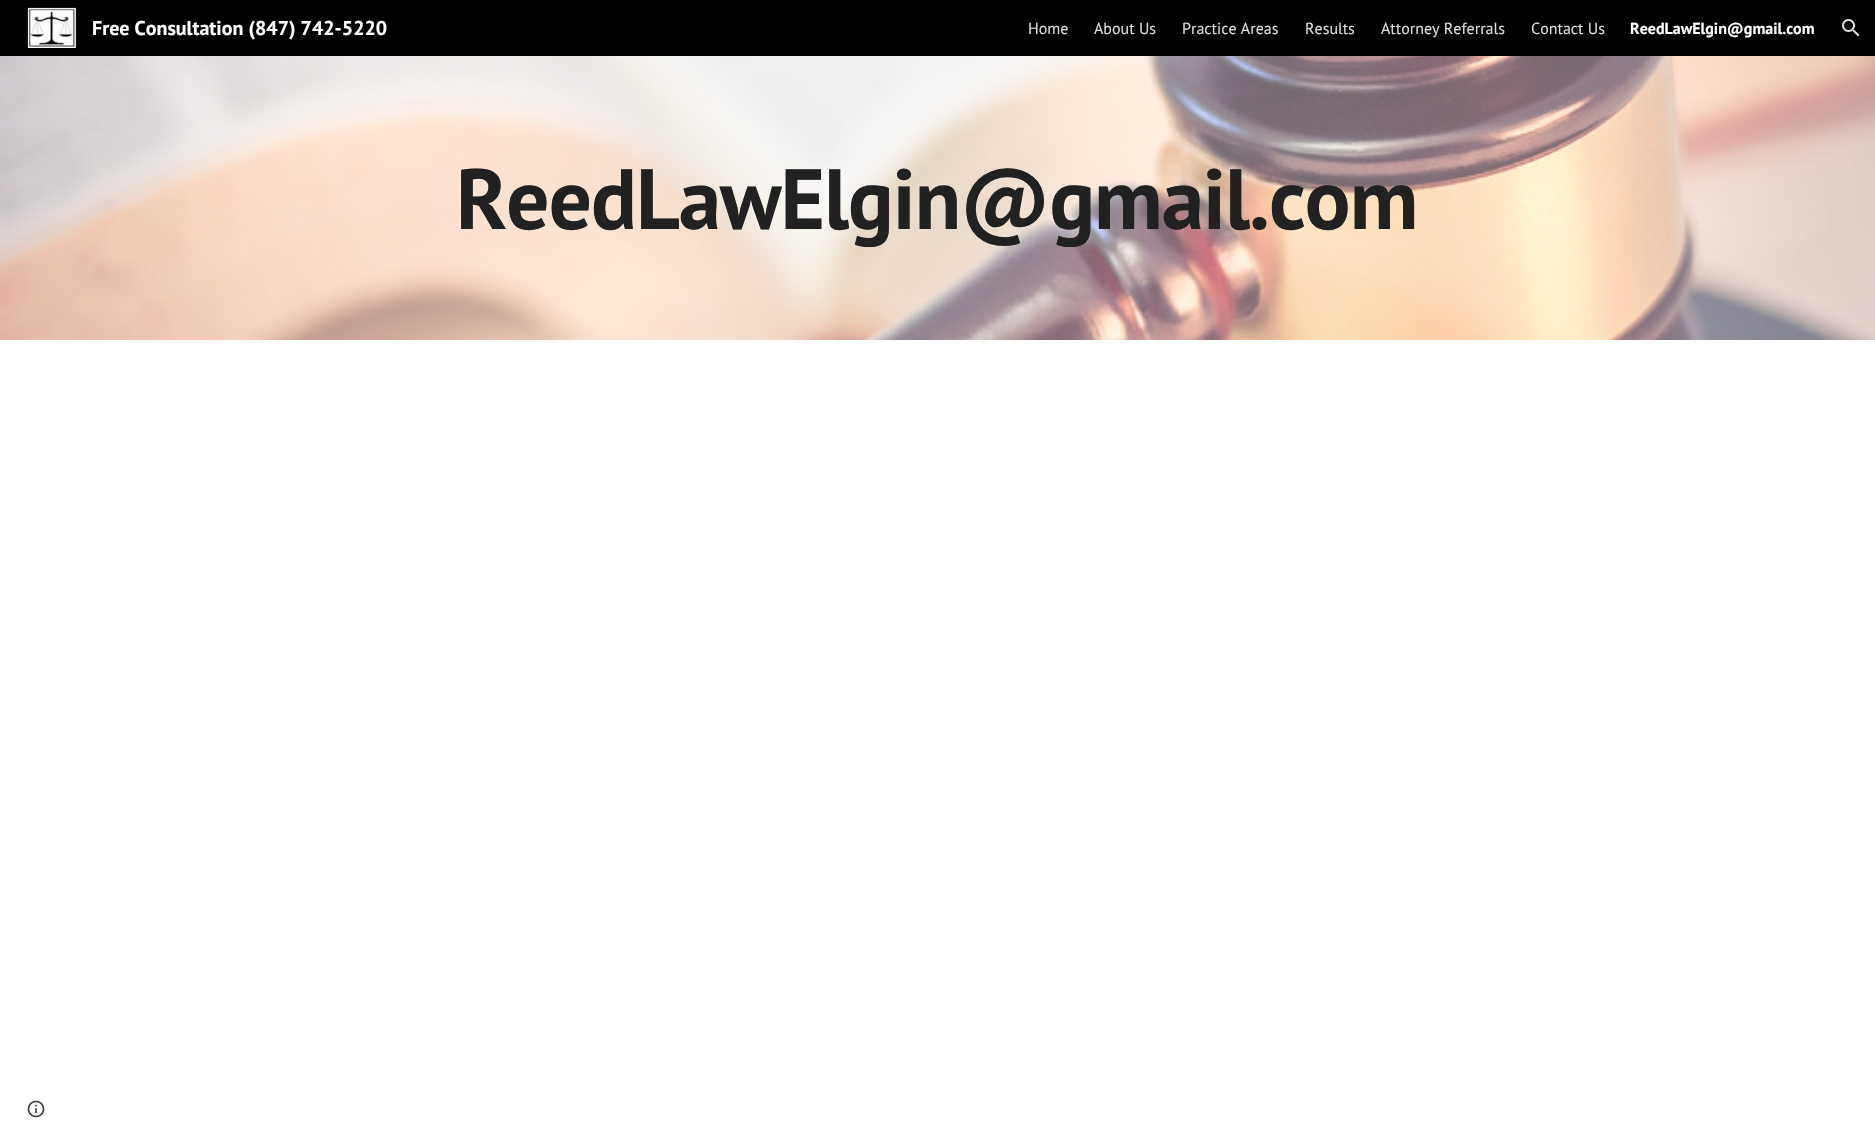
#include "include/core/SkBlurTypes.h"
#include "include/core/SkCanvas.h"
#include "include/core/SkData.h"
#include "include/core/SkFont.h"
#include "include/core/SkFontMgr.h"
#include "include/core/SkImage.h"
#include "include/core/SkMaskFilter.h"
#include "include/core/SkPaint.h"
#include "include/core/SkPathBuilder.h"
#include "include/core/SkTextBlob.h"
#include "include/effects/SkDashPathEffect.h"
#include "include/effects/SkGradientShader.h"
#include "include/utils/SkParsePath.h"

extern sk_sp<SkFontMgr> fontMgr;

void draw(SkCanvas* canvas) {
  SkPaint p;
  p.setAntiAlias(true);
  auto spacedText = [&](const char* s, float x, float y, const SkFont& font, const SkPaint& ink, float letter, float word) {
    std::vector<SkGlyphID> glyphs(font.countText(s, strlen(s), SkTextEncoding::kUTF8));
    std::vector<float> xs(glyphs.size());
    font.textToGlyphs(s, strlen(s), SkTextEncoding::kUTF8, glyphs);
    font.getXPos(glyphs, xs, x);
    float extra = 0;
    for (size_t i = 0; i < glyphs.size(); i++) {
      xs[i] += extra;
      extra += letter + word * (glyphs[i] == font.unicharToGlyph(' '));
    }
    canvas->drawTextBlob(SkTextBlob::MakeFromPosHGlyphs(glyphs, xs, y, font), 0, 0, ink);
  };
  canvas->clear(SK_ColorWHITE);
  p.setColor(SK_ColorBLACK);
  canvas->drawRect(SkRect::MakeLTRB(0, 0, 1875, 56), p);
  canvas->drawImageRect(SkImages::DeferredFromEncodedData(SkData::MakeFromFileName("images/1.png")), SkRect::MakeLTRB(27, 7, 77, 48), SkSamplingOptions());
  canvas->drawImageRect(SkImages::DeferredFromEncodedData(SkData::MakeFromFileName("images/2.png")), SkRect::MakeLTRB(1842, 19, 1860, 37), SkSamplingOptions());
  canvas->drawImageRect(SkImages::DeferredFromEncodedData(SkData::MakeFromFileName("images/3.png")), SkRect::MakeLTRB(0, 56, 1875, 340), SkSamplingOptions());
  canvas->drawImageRect(SkImages::DeferredFromEncodedData(SkData::MakeFromFileName("images/4.png")), SkRect::MakeLTRB(27, 1100, 45, 1118), SkSamplingOptions());
  SkFont font1(fontMgr->matchFamilyStyle("PT Sans", SkFontStyle::Bold()), 20);
  font1.setSubpixel(true);
  p.setColor(SK_ColorWHITE);
  canvas->drawString("Free Consultation (847) 742-5220", 92, 35, font1, p);
  SkFont font2(fontMgr->matchFamilyStyle("PT Sans", SkFontStyle::Normal()), 16);
  font2.setSubpixel(true);
  p.setColor(SkColorSetRGB(222, 222, 222));
  canvas->drawString("Home", 1028, 34, font2, p);
  canvas->drawString("About Us", 1094, 34, font2, p);
  canvas->drawString("Practice Areas", 1182, 34, font2, p);
  canvas->drawString("Results", 1305, 34, font2, p);
  canvas->drawString("Attorney Referrals", 1381, 34, font2, p);
  canvas->drawString("Contact Us", 1531, 34, font2, p);
  SkFont font3(fontMgr->matchFamilyStyle("PT Sans", SkFontStyle::Bold()), 16);
  font3.setSubpixel(true);
  p.setColor(SK_ColorWHITE);
  canvas->drawString("ReedLawElgin@gmail.com", 1630, 34, font3, p);
  SkFont font4(fontMgr->matchFamilyStyle("PT Sans", SkFontStyle::Bold()), 85.25f);
  font4.setSubpixel(true);
  p.setColor(SkColorSetRGB(33, 33, 33));
  spacedText("ReedLawElgin@gmail.com", 456, 229, font4, p, -1, 0);
}
